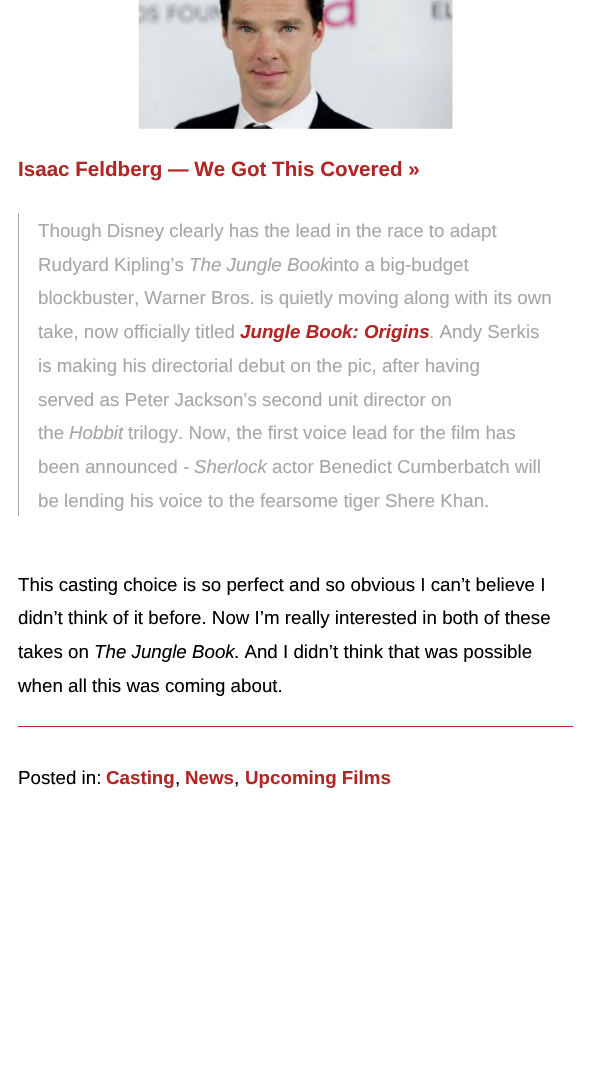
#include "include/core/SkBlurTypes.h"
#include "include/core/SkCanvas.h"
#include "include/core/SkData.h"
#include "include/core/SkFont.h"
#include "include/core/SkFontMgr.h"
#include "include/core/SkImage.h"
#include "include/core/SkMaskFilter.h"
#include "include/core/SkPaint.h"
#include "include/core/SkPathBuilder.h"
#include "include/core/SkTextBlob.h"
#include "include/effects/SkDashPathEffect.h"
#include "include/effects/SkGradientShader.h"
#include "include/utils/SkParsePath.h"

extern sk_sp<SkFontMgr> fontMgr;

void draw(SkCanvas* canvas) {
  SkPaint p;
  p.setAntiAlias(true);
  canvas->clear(SK_ColorWHITE);
  canvas->drawImageRect(SkImages::DeferredFromEncodedData(SkData::MakeFromFileName("images/1.png")), SkRect::MakeLTRB(138, 0, 453, 129), SkSamplingOptions());
  p.setColor(SkColorSetRGB(166, 166, 166));
  canvas->drawRect(SkRect::MakeLTRB(18, 213, 19, 516), p);
  p.setColor(SkColorSetRGB(178, 38, 38));
  canvas->drawRect(SkRect::MakeLTRB(18, 726, 573, 727), p);
  SkFont font1(fontMgr->matchFamilyStyle("Liberation Sans", SkFontStyle::Bold()), 20.6f);
  font1.setSubpixel(true);
  canvas->drawString("Isaac Feldberg — We Got This Covered »", 18, 176, font1, p);
  SkFont font2(fontMgr->matchFamilyStyle("Liberation Sans", SkFontStyle::Normal()), 18.75f);
  font2.setSubpixel(true);
  p.setColor(SkColorSetRGB(166, 166, 166));
  canvas->drawString("Though Disney clearly has the lead in the race to adapt", 38, 237, font2, p);
  canvas->drawString("Rudyard Kipling’s", 38, 271, font2, p);
  SkFont font3(fontMgr->matchFamilyStyle("Liberation Sans", SkFontStyle::Italic()), 18.75f);
  font3.setSubpixel(true);
  canvas->drawString("The Jungle Book", 189, 271, font3, p);
  canvas->drawString("into a big-budget", 329, 271, font2, p);
  canvas->drawString("blockbuster, Warner Bros. is quietly moving along with its own", 38, 304, font2, p);
  canvas->drawString("take, now officially titled", 38, 338, font2, p);
  SkFont font4(fontMgr->matchFamilyStyle("Liberation Sans", SkFontStyle::BoldItalic()), 18.75f);
  font4.setSubpixel(true);
  p.setColor(SkColorSetRGB(178, 38, 38));
  canvas->drawString("Jungle Book: Origins", 240, 338, font4, p);
  p.setColor(SkColorSetRGB(166, 166, 166));
  canvas->drawString(". Andy Serkis", 429, 338, font2, p);
  canvas->drawString("is making his directorial debut on the pic, after having", 38, 372, font2, p);
  canvas->drawString("served as Peter Jackson’s second unit director on", 38, 406, font2, p);
  canvas->drawString("the", 38, 439, font2, p);
  canvas->drawString("Hobbit", 69, 439, font3, p);
  canvas->drawString("trilogy. Now, the first voice lead for the film has", 128, 439, font2, p);
  canvas->drawString("been announced -", 38, 473, font2, p);
  canvas->drawString("Sherlock", 194, 473, font3, p);
  canvas->drawString("actor Benedict Cumberbatch will", 272, 473, font2, p);
  canvas->drawString("be lending his voice to the fearsome tiger Shere Khan.", 38, 507, font2, p);
  p.setColor(SK_ColorBLACK);
  canvas->drawString("This casting choice is so perfect and so obvious I can’t believe I", 18, 591, font2, p);
  canvas->drawString("didn’t think of it before. Now I’m really interested in both of these", 18, 624, font2, p);
  canvas->drawString("takes on", 18, 658, font2, p);
  canvas->drawString("The Jungle Book", 94, 658, font3, p);
  canvas->drawString(". And I didn’t think that was possible", 234, 658, font2, p);
  canvas->drawString("when all this was coming about.", 18, 692, font2, p);
  canvas->drawString("Posted in:", 18, 784, font2, p);
  SkFont font5(fontMgr->matchFamilyStyle("Liberation Sans", SkFontStyle::Bold()), 18.75f);
  font5.setSubpixel(true);
  p.setColor(SkColorSetRGB(178, 38, 38));
  canvas->drawString("Casting", 106, 784, font5, p);
  p.setColor(SK_ColorBLACK);
  canvas->drawString(",", 175, 784, font2, p);
  p.setColor(SkColorSetRGB(178, 38, 38));
  canvas->drawString("News", 185, 784, font5, p);
  p.setColor(SK_ColorBLACK);
  canvas->drawString(",", 234, 784, font2, p);
  p.setColor(SkColorSetRGB(178, 38, 38));
  canvas->drawString("Upcoming Films", 245, 784, font5, p);
}
